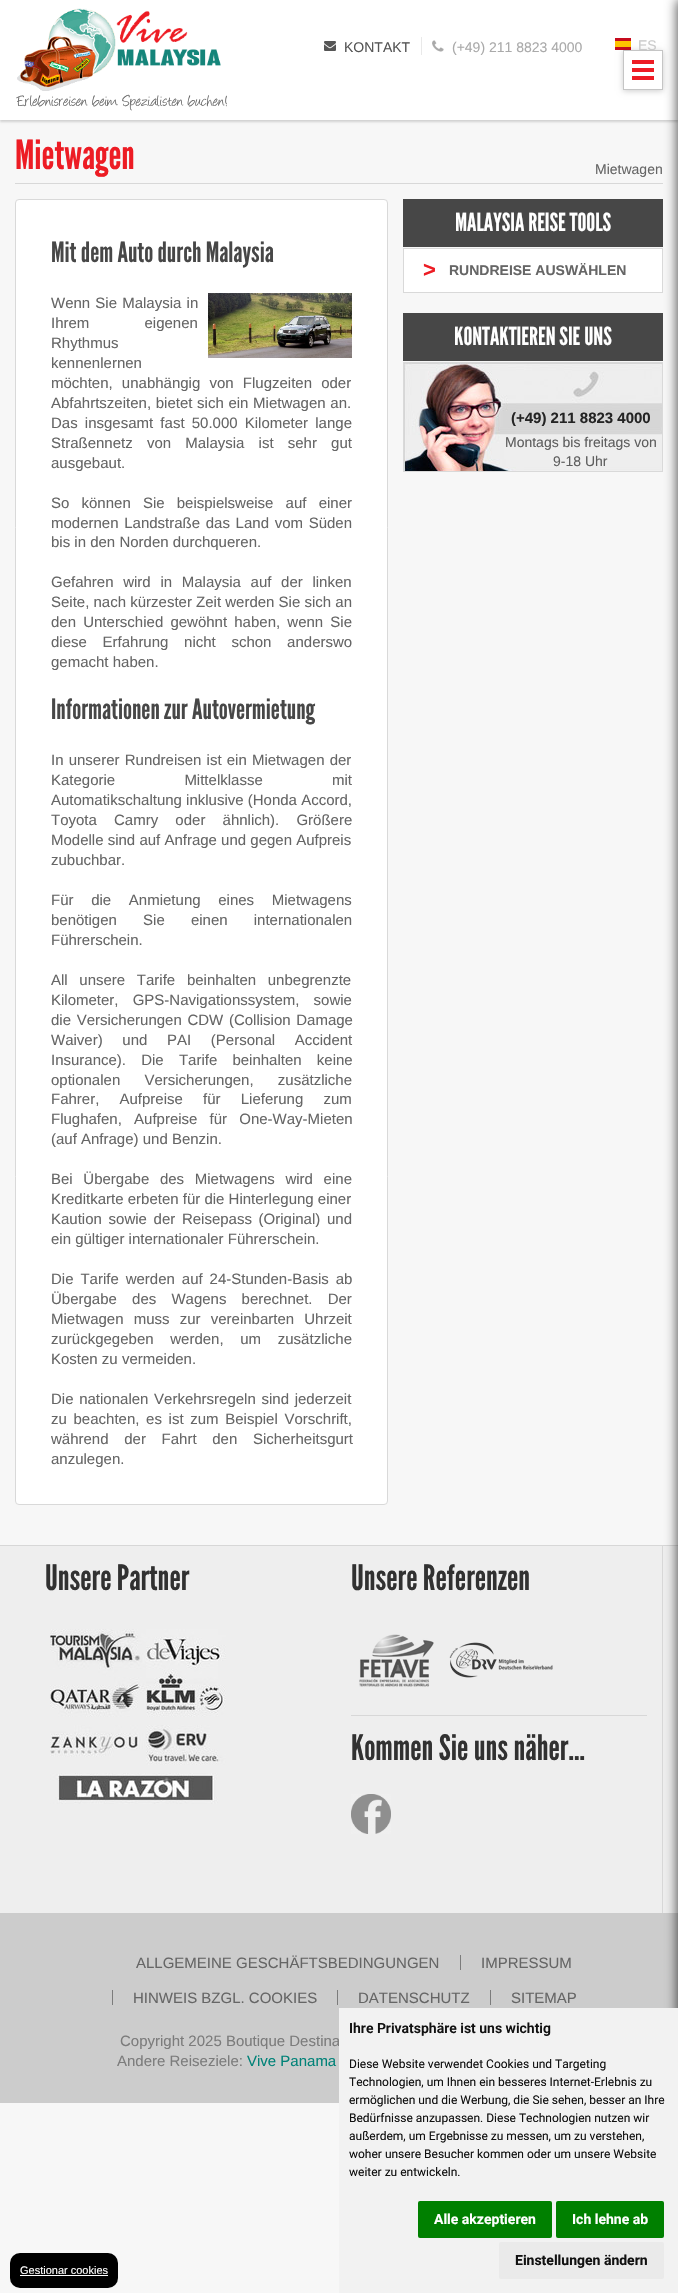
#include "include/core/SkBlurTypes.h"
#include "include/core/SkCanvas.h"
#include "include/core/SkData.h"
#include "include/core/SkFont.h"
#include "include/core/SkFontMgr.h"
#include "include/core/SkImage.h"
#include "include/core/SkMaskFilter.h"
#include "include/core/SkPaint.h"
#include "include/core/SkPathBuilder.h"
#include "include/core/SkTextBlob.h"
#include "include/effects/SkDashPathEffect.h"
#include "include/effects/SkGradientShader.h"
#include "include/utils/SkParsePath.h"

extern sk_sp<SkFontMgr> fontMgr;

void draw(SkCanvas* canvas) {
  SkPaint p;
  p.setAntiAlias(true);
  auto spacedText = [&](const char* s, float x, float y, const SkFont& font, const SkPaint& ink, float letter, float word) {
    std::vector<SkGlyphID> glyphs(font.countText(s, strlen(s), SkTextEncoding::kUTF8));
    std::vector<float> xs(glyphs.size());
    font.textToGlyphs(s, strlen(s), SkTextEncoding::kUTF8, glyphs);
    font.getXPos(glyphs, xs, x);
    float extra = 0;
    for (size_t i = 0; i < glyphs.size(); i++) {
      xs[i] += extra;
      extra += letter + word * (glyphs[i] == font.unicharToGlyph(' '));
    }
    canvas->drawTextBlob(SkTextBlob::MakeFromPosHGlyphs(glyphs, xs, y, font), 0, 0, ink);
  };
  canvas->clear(SkColorSetRGB(247, 247, 247));
  p.setColor(SkColorSetARGB(38, 0, 0, 0));
  p.setMaskFilter(SkMaskFilter::MakeBlur(kNormal_SkBlurStyle, 1));
  canvas->drawRect(SkRect::MakeLTRB(0, 2, 678, 122), p);
  p.setMaskFilter(nullptr);
  p.setColor(SK_ColorWHITE);
  canvas->drawRect(SkRect::MakeLTRB(0, 0, 678, 120), p);
  canvas->drawImageRect(SkImages::DeferredFromEncodedData(SkData::MakeFromFileName("images/3.png")), SkRect::MakeLTRB(615, 38, 631, 50), SkSamplingOptions());
  p.setColor(SkColorSetARGB(51, 0, 0, 0));
  p.setMaskFilter(SkMaskFilter::MakeBlur(kNormal_SkBlurStyle, 3));
  canvas->drawRect(SkRect::MakeLTRB(623, 51, 663, 91), p);
  p.setMaskFilter(nullptr);
  canvas->drawImageRect(SkImages::DeferredFromEncodedData(SkData::MakeFromFileName("images/1.png")), SkRect::MakeLTRB(324, 41, 336, 51), SkSamplingOptions());
  canvas->drawImageRect(SkImages::DeferredFromEncodedData(SkData::MakeFromFileName("images/2.png")), SkRect::MakeLTRB(432, 40, 444, 52), SkSamplingOptions());
  p.setColor(SkColorSetRGB(233, 233, 233));
  canvas->drawRect(SkRect::MakeLTRB(421, 37, 422, 55), p);
  canvas->drawImageRect(SkImages::DeferredFromEncodedData(SkData::MakeFromFileName("images/4.png")), SkRect::MakeLTRB(17, 8, 221, 91), SkSamplingOptions());
  p.setColor(SkColorSetRGB(216, 216, 216));
  canvas->drawRect(SkRect::MakeLTRB(15, 183, 663, 184), p);
  p.setColor(SK_ColorWHITE);
  canvas->drawRoundRect(SkRect::MakeLTRB(15.5f, 199.5f, 387.5f, 1504.5f), 3.5f, 3.5f, p);
  p.setStyle(SkPaint::kStroke_Style);
  p.setStrokeWidth(1);
  p.setColor(SkColorSetRGB(217, 217, 217));
  canvas->drawRoundRect(SkRect::MakeLTRB(15.5f, 199.5f, 387.5f, 1504.5f), 3.5f, 3.5f, p);
  canvas->drawImageRect(SkImages::DeferredFromEncodedData(SkData::MakeFromFileName("images/5.png")), SkRect::MakeLTRB(208, 293, 352, 358), SkSamplingOptions());
  p.setStyle(SkPaint::kFill_Style);
  p.setColor(SkColorSetRGB(71, 71, 71));
  canvas->drawRect(SkRect::MakeLTRB(403, 199, 663, 247), p);
  p.setColor(SK_ColorWHITE);
  canvas->drawRect(SkRect::MakeLTRB(403.5f, 248.5f, 662.5f, 292.5f), p);
  p.setStyle(SkPaint::kStroke_Style);
  p.setColor(SkColorSetRGB(217, 217, 217));
  canvas->drawRect(SkRect::MakeLTRB(403.5f, 248.5f, 662.5f, 292.5f), p);
  p.setStyle(SkPaint::kFill_Style);
  p.setColor(SkColorSetRGB(71, 71, 71));
  canvas->drawRect(SkRect::MakeLTRB(403, 313, 663, 361), p);
  canvas->drawImageRect(SkImages::DeferredFromEncodedData(SkData::MakeFromFileName("images/6.png")), SkRect::MakeLTRB(404, 363, 662, 471), SkSamplingOptions());
  p.setStyle(SkPaint::kStroke_Style);
  p.setColor(SkColorSetRGB(217, 217, 217));
  canvas->drawRect(SkRect::MakeLTRB(403.5f, 362.5f, 662.5f, 471.5f), p);
  p.setStyle(SkPaint::kFill_Style);
  p.setColor(SkColorSetRGB(238, 238, 238));
  canvas->drawRect(SkRect::MakeLTRB(0, 1546, 678, 1913), p);
  p.setColor(SkColorSetRGB(215, 215, 215));
  canvas->drawRect(SkRect::MakeLTRB(0, 1545, 678, 1546), p);
  canvas->drawImageRect(SkImages::DeferredFromEncodedData(SkData::MakeFromFileName("images/7.png")), SkRect::MakeLTRB(50, 1629, 226, 1804), SkSamplingOptions());
  canvas->drawRect(SkRect::MakeLTRB(662, 1546, 663, 1913), p);
  canvas->drawRect(SkRect::MakeLTRB(351, 1715, 647, 1716), p);
  canvas->drawImageRect(SkImages::DeferredFromEncodedData(SkData::MakeFromFileName("images/8.png")), SkRect::MakeLTRB(359, 1634, 434, 1687), SkSamplingOptions());
  canvas->drawImageRect(SkImages::DeferredFromEncodedData(SkData::MakeFromFileName("images/9.png")), SkRect::MakeLTRB(449, 1642, 553, 1678), SkSamplingOptions());
  canvas->drawImageRect(SkImages::DeferredFromEncodedData(SkData::MakeFromFileName("images/10.png")), SkRect::MakeLTRB(351, 1794, 391, 1834), SkSamplingOptions());
  p.setColor(SkColorSetRGB(204, 204, 204));
  canvas->drawRect(SkRect::MakeLTRB(0, 1913, 678, 2103), p);
  p.setColor(SkColorSetRGB(124, 124, 124));
  canvas->drawRect(SkRect::MakeLTRB(460, 1955, 461, 1970), p);
  canvas->drawRect(SkRect::MakeLTRB(112, 1990, 113, 2005), p);
  canvas->drawRect(SkRect::MakeLTRB(337, 1990, 338, 2005), p);
  canvas->drawRect(SkRect::MakeLTRB(490, 1990, 491, 2005), p);
  p.setColor(SK_ColorBLACK);
  canvas->drawRoundRect(SkRect::MakeLTRB(10, 2253, 118, 2288), 10, 10, p);
  p.setColor(SK_ColorWHITE);
  canvas->drawRect(SkRect::MakeLTRB(20, 2275, 108, 2276), p);
  SkFont font1(fontMgr->matchFamilyStyle("Liberation Sans", SkFontStyle::Normal()), 14);
  font1.setSubpixel(true);
  p.setColor(SkColorSetRGB(85, 85, 85));
  canvas->drawString("KONTAKT", 344, 52, font1, p);
  p.setColor(SkColorSetRGB(170, 170, 170));
  canvas->drawString("(+49) 211 8823 4000", 452, 52, font1, p);
  p.setColor(SkColorSetRGB(202, 202, 202));
  canvas->drawString("ES", 638, 50, font1, p);
  p.setColor(SK_ColorWHITE);
  canvas->drawRect(SkRect::MakeLTRB(623.5f, 50.5f, 662.5f, 89.5f), p);
  p.setStyle(SkPaint::kStroke_Style);
  p.setColor(SkColorSetRGB(197, 197, 197));
  canvas->drawRect(SkRect::MakeLTRB(623.5f, 50.5f, 662.5f, 89.5f), p);
  p.setStyle(SkPaint::kFill_Style);
  p.setColor(SkColorSetARGB(168, 0, 0, 0));
  p.setMaskFilter(SkMaskFilter::MakeBlur(kNormal_SkBlurStyle, 6));
  canvas->drawRect(SkRect::MakeLTRB(677, 0, 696, 2293), p);
  p.setMaskFilter(nullptr);
  p.setColor(SkColorSetRGB(237, 28, 36));
  canvas->drawRect(SkRect::MakeLTRB(632, 76, 654, 80), p);
  canvas->drawRect(SkRect::MakeLTRB(632, 68, 654, 72), p);
  canvas->drawRect(SkRect::MakeLTRB(632, 60, 654, 64), p);
  SkFont font2(fontMgr->matchFamilyStyle("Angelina", SkFontStyle::Normal()), 18);
  font2.setSubpixel(true);
  p.setColor(SkColorSetRGB(102, 102, 102));
  canvas->drawString("Erlebnisreisen beim Spezialisten buchen!", 17, 105, font2, p);
  SkFont font3(fontMgr->matchFamilyStyle("League Gothic", SkFontStyle::Normal()), 40);
  font3.setSubpixel(true);
  p.setColor(SkColorSetRGB(237, 28, 36));
  canvas->drawString("Mietwagen", 15, 169, font3, p);
  p.setColor(SkColorSetRGB(102, 102, 102));
  canvas->drawString("Mietwagen", 595, 174, font1, p);
  SkFont font4(fontMgr->matchFamilyStyle("League Gothic", SkFontStyle::Normal()), 28);
  font4.setSubpixel(true);
  p.setColor(SkColorSetRGB(71, 71, 71));
  canvas->drawString("Mit dem Auto durch Malaysia", 51, 262, font4, p);
  SkFont font5(fontMgr->matchFamilyStyle("Liberation Sans", SkFontStyle::Normal()), 15);
  font5.setSubpixel(true);
  p.setColor(SkColorSetRGB(102, 102, 102));
  spacedText("Wenn Sie Malaysia in", 51, 308, font5, p, 0, 1);
  spacedText("Ihrem eigenen", 51, 328, font5, p, 0, 51);
  canvas->drawString("Rhythmus", 51, 348, font5, p);
  canvas->drawString("kennenlernen", 51, 368, font5, p);
  spacedText("möchten, unabhängig von Flugzeiten oder", 51, 388, font5, p, 0, 5);
  spacedText("Abfahrtszeiten, bietet sich ein Mietwagen an.", 51, 408, font5, p, 0, 0.5f);
  spacedText("Das insgesamt fast 50.000 Kilometer lange", 51, 428, font5, p, 0, 3);
  spacedText("Straßennetz von Malaysia ist sehr gut", 51, 448, font5, p, 0, 10);
  canvas->drawString("ausgebaut.", 51, 468, font5, p);
  spacedText("So können Sie beispielsweise auf einer", 51, 508, font5, p, 0, 8);
  spacedText("modernen Landstraße das Land vom Süden", 51, 528, font5, p, 0, 1.5f);
  canvas->drawString("bis in den Norden durchqueren.", 51, 547, font5, p);
  spacedText("Gefahren wird in Malaysia auf der linken", 51, 587, font5, p, 0, 5.5f);
  canvas->drawString("Seite, nach kürzester Zeit werden Sie sich an", 51, 607, font5, p);
  spacedText("den Unterschied gewöhnt haben, wenn Sie", 51, 627, font5, p, 0, 3);
  spacedText("diese Erfahrung nicht schon anderswo", 51, 647, font5, p, 0, 11.5f);
  canvas->drawString("gemacht haben.", 51, 667, font5, p);
  p.setColor(SkColorSetRGB(71, 71, 71));
  canvas->drawString("Informationen zur Autovermietung", 51, 719, font4, p);
  p.setColor(SkColorSetRGB(102, 102, 102));
  spacedText("In unserer Rundreisen ist ein Mietwagen der", 51, 765, font5, p, 0, 1);
  spacedText("Kategorie Mittelklasse mit", 51, 785, font5, p, 0, 65);
  canvas->drawString("Automatikschaltung inklusive (Honda Accord,", 51, 805, font5, p);
  spacedText("Toyota Camry oder ähnlich). Größere", 51, 825, font5, p, 0, 13);
  canvas->drawString("Modelle sind auf Anfrage und gegen Aufpreis", 51, 845, font5, p);
  canvas->drawString("zubuchbar.", 51, 865, font5, p);
  spacedText("Für die Anmietung eines Mietwagens", 51, 905, font5, p, 0, 13.5f);
  spacedText("benötigen Sie einen internationalen", 51, 925, font5, p, 0, 22);
  canvas->drawString("Führerschein.", 51, 945, font5, p);
  spacedText("All unsere Tarife beinhalten unbegrenzte", 51, 985, font5, p, 0, 7.5f);
  spacedText("Kilometer, GPS-Navigationssystem, sowie", 51, 1005, font5, p, 0, 10);
  spacedText("die Versicherungen CDW (Collision Damage", 51, 1025, font5, p, 0, 1.5f);
  spacedText("Waiver) und PAI (Personal Accident", 51, 1045, font5, p, 0, 15.5f);
  spacedText("Insurance). Die Tarife beinhalten keine", 51, 1065, font5, p, 0, 11);
  spacedText("optionalen Versicherungen, zusätzliche", 51, 1085, font5, p, 0, 20);
  spacedText("Fahrer, Aufpreise für Lieferung zum", 51, 1104, font5, p, 0, 16);
  spacedText("Flughafen, Aufpreise für One-Way-Mieten", 51, 1124, font5, p, 0, 8);
  canvas->drawString("(auf Anfrage) und Benzin.", 51, 1144, font5, p);
  spacedText("Bei Übergabe des Mietwagens wird eine", 51, 1184, font5, p, 0, 6.5f);
  canvas->drawString("Kreditkarte erbeten für die Hinterlegung einer", 51, 1204, font5, p);
  spacedText("Kaution sowie der Reisepass (Original) und", 51, 1224, font5, p, 0, 2.5f);
  canvas->drawString("ein gültiger internationaler Führerschein.", 51, 1244, font5, p);
  spacedText("Die Tarife werden auf 24-Stunden-Basis ab", 51, 1284, font5, p, 0, 2.75f);
  spacedText("Übergabe des Wagens berechnet. Der", 51, 1304, font5, p, 0, 11);
  spacedText("Mietwagen muss zur vereinbarten Uhrzeit", 51, 1324, font5, p, 0, 6);
  spacedText("zurückgegeben werden, um zusätzliche", 51, 1344, font5, p, 0, 12.5f);
  canvas->drawString("Kosten zu vermeiden.", 51, 1364, font5, p);
  spacedText("Die nationalen Verkehrsregeln sind jederzeit", 51, 1404, font5, p, 0, 1.5f);
  spacedText("zu beachten, es ist zum Beispiel Vorschrift,", 51, 1424, font5, p, 0, 2.5f);
  spacedText("während der Fahrt den Sicherheitsgurt", 51, 1444, font5, p, 0, 11.5f);
  canvas->drawString("anzulegen.", 51, 1464, font5, p);
  SkFont font6(fontMgr->matchFamilyStyle("League Gothic", SkFontStyle::Normal()), 25);
  font6.setSubpixel(true);
  p.setColor(SK_ColorWHITE);
  canvas->drawString("MALAYSIA REISE TOOLS", 455, 231, font6, p);
  SkFont font7(fontMgr->matchFamilyStyle("Liberation Sans", SkFontStyle::Bold()), 22);
  font7.setSubpixel(true);
  p.setColor(SkColorSetRGB(237, 28, 36));
  canvas->drawString(">", 423, 277, font7, p);
  SkFont font8(fontMgr->matchFamilyStyle("Liberation Sans", SkFontStyle::Bold()), 14);
  font8.setSubpixel(true);
  p.setColor(SkColorSetRGB(102, 102, 102));
  canvas->drawString("RUNDREISE AUSWÄHLEN", 449, 275, font8, p);
  p.setColor(SK_ColorWHITE);
  canvas->drawString("KONTAKTIEREN SIE UNS", 454, 345, font6, p);
  SkFont font9(fontMgr->matchFamilyStyle("Liberation Sans", SkFontStyle::Bold()), 15);
  font9.setSubpixel(true);
  p.setColor(SkColorSetRGB(36, 36, 36));
  canvas->drawString("(+49) 211 8823 4000", 511, 423, font9, p);
  p.setColor(SkColorSetRGB(94, 94, 94));
  canvas->drawString("Montags bis freitags von", 505, 447, font1, p);
  canvas->drawString("9-18 Uhr", 553, 466, font1, p);
  SkFont font10(fontMgr->matchFamilyStyle("League Gothic", SkFontStyle::Normal()), 35);
  font10.setSubpixel(true);
  p.setColor(SkColorSetRGB(49, 49, 49));
  canvas->drawString("Unsere Partner", 45, 1590, font10, p);
  canvas->drawString("Unsere Referenzen", 351, 1590, font10, p);
  canvas->drawString("Kommen Sie uns näher...", 351, 1760, font10, p);
  p.setColor(SkColorSetRGB(102, 102, 102));
  canvas->drawString("ALLGEMEINE GESCHÄFTSBEDINGUNGEN", 136, 1968, font5, p);
  canvas->drawString("IMPRESSUM", 481, 1968, font5, p);
  canvas->drawString("HINWEIS BZGL. COOKIES", 133, 2003, font5, p);
  canvas->drawString("DATENSCHUTZ", 358, 2003, font5, p);
  canvas->drawString("SITEMAP", 511, 2003, font5, p);
  p.setColor(SkColorSetRGB(124, 124, 124));
  canvas->drawString("Copyright 2025 Boutique Destina", 120, 2046, font5, p);
  canvas->drawString("Andere Reiseziele:", 117, 2066, font5, p);
  p.setColor(SkColorSetRGB(1, 130, 120));
  canvas->drawString("Vive Panama", 247, 2066, font5, p);
  p.setColor(SkColorSetRGB(242, 242, 242));
  canvas->drawRect(SkRect::MakeLTRB(339, 2008, 678, 2293), p);
  SkFont font11(fontMgr->matchFamilyStyle("Roboto", SkFontStyle(600, SkFontStyle::kNormal_Width, SkFontStyle::kUpright_Slant)), 14);
  font11.setSubpixel(true);
  p.setColor(SkColorSetRGB(17, 17, 17));
  canvas->drawString("Ihre Privatsphäre ist uns wichtig", 349, 2033, font11, p);
  SkFont font12(fontMgr->matchFamilyStyle("Roboto", SkFontStyle::Normal()), 12);
  font12.setSubpixel(true);
  canvas->drawString("Diese Website verwendet Cookies und Targeting", 349, 2068, font12, p);
  canvas->drawString("Technologien, um Ihnen ein besseres Internet-Erlebnis zu", 349, 2086, font12, p);
  canvas->drawString("ermöglichen und die Werbung, die Sie sehen, besser an Ihre", 349, 2104, font12, p);
  canvas->drawString("Bedürfnisse anzupassen. Diese Technologien nutzen wir", 349, 2122, font12, p);
  canvas->drawString("außerdem, um Ergebnisse zu messen, um zu verstehen,", 349, 2140, font12, p);
  canvas->drawString("woher unsere Besucher kommen oder um unsere Website", 349, 2158, font12, p);
  canvas->drawString("weiter zu entwickeln.", 349, 2176, font12, p);
  p.setColor(SkColorSetRGB(0, 128, 0));
  canvas->drawRoundRect(SkRect::MakeLTRB(418, 2201, 552, 2238), 2, 2, p);
  SkFont font13(fontMgr->matchFamilyStyle("Roboto", SkFontStyle::Bold()), 14);
  font13.setSubpixel(true);
  p.setColor(SK_ColorWHITE);
  canvas->drawString("Alle akzeptieren", 434, 2224, font13, p);
  p.setColor(SkColorSetRGB(0, 128, 0));
  canvas->drawRoundRect(SkRect::MakeLTRB(556, 2201, 664, 2238), 2, 2, p);
  p.setColor(SK_ColorWHITE);
  canvas->drawString("Ich lehne ab", 572, 2224, font13, p);
  p.setColor(SkColorSetRGB(234, 234, 234));
  canvas->drawRoundRect(SkRect::MakeLTRB(499, 2242, 664, 2279), 2, 2, p);
  p.setColor(SkColorSetRGB(17, 17, 17));
  canvas->drawString("Einstellungen ändern", 515, 2265, font13, p);
  SkFont font14(fontMgr->matchFamilyStyle("Liberation Sans", SkFontStyle::Normal()), 11);
  font14.setSubpixel(true);
  p.setColor(SK_ColorWHITE);
  canvas->drawString("Gestionar cookies", 20, 2274, font14, p);
}
